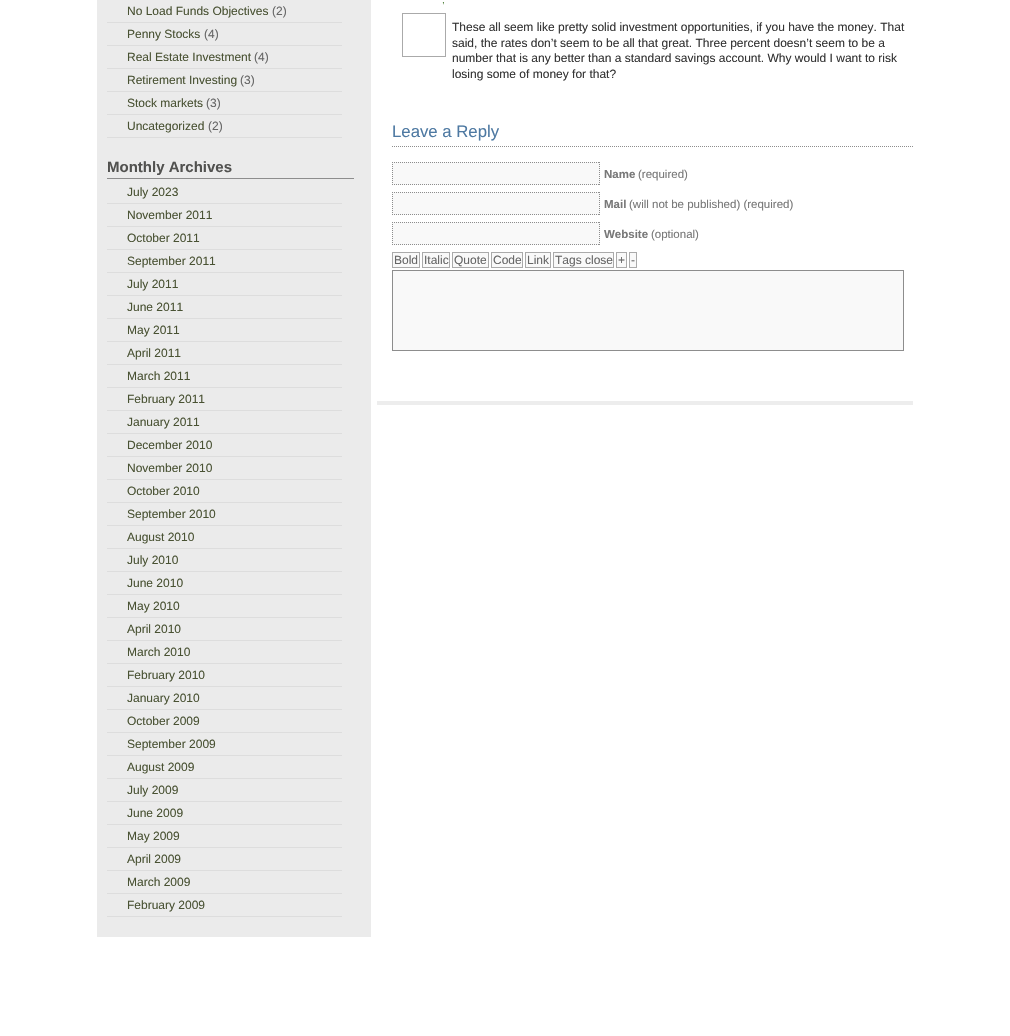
#include "include/core/SkBlurTypes.h"
#include "include/core/SkCanvas.h"
#include "include/core/SkData.h"
#include "include/core/SkFont.h"
#include "include/core/SkFontMgr.h"
#include "include/core/SkImage.h"
#include "include/core/SkMaskFilter.h"
#include "include/core/SkPaint.h"
#include "include/core/SkPathBuilder.h"
#include "include/core/SkTextBlob.h"
#include "include/effects/SkDashPathEffect.h"
#include "include/effects/SkGradientShader.h"
#include "include/utils/SkParsePath.h"

extern sk_sp<SkFontMgr> fontMgr;

void draw(SkCanvas* canvas) {
  SkPaint p;
  p.setAntiAlias(true);
  canvas->clear(SK_ColorWHITE);
  p.setColor(SkColorSetRGB(235, 235, 235));
  canvas->drawRect(SkRect::MakeLTRB(97, 0, 371, 937), p);
  p.setColor(SkColorSetRGB(221, 221, 221));
  canvas->drawRect(SkRect::MakeLTRB(107, 22, 342, 23), p);
  canvas->drawRect(SkRect::MakeLTRB(107, 45, 342, 46), p);
  canvas->drawRect(SkRect::MakeLTRB(107, 68, 342, 69), p);
  canvas->drawRect(SkRect::MakeLTRB(107, 91, 342, 92), p);
  canvas->drawRect(SkRect::MakeLTRB(107, 114, 342, 115), p);
  canvas->drawRect(SkRect::MakeLTRB(107, 137, 342, 138), p);
  p.setColor(SkColorSetRGB(141, 141, 141));
  canvas->drawRect(SkRect::MakeLTRB(107, 178, 354, 179), p);
  p.setColor(SkColorSetRGB(221, 221, 221));
  canvas->drawRect(SkRect::MakeLTRB(107, 203, 342, 204), p);
  canvas->drawRect(SkRect::MakeLTRB(107, 226, 342, 227), p);
  canvas->drawRect(SkRect::MakeLTRB(107, 249, 342, 250), p);
  canvas->drawRect(SkRect::MakeLTRB(107, 272, 342, 273), p);
  canvas->drawRect(SkRect::MakeLTRB(107, 295, 342, 296), p);
  canvas->drawRect(SkRect::MakeLTRB(107, 318, 342, 319), p);
  canvas->drawRect(SkRect::MakeLTRB(107, 341, 342, 342), p);
  canvas->drawRect(SkRect::MakeLTRB(107, 364, 342, 365), p);
  canvas->drawRect(SkRect::MakeLTRB(107, 387, 342, 388), p);
  canvas->drawRect(SkRect::MakeLTRB(107, 410, 342, 411), p);
  canvas->drawRect(SkRect::MakeLTRB(107, 433, 342, 434), p);
  canvas->drawRect(SkRect::MakeLTRB(107, 456, 342, 457), p);
  canvas->drawRect(SkRect::MakeLTRB(107, 479, 342, 480), p);
  canvas->drawRect(SkRect::MakeLTRB(107, 502, 342, 503), p);
  canvas->drawRect(SkRect::MakeLTRB(107, 525, 342, 526), p);
  canvas->drawRect(SkRect::MakeLTRB(107, 548, 342, 549), p);
  canvas->drawRect(SkRect::MakeLTRB(107, 571, 342, 572), p);
  canvas->drawRect(SkRect::MakeLTRB(107, 594, 342, 595), p);
  canvas->drawRect(SkRect::MakeLTRB(107, 617, 342, 618), p);
  canvas->drawRect(SkRect::MakeLTRB(107, 640, 342, 641), p);
  canvas->drawRect(SkRect::MakeLTRB(107, 663, 342, 664), p);
  canvas->drawRect(SkRect::MakeLTRB(107, 686, 342, 687), p);
  canvas->drawRect(SkRect::MakeLTRB(107, 709, 342, 710), p);
  canvas->drawRect(SkRect::MakeLTRB(107, 732, 342, 733), p);
  canvas->drawRect(SkRect::MakeLTRB(107, 755, 342, 756), p);
  canvas->drawRect(SkRect::MakeLTRB(107, 778, 342, 779), p);
  canvas->drawRect(SkRect::MakeLTRB(107, 801, 342, 802), p);
  canvas->drawRect(SkRect::MakeLTRB(107, 824, 342, 825), p);
  canvas->drawRect(SkRect::MakeLTRB(107, 847, 342, 848), p);
  canvas->drawRect(SkRect::MakeLTRB(107, 870, 342, 871), p);
  canvas->drawRect(SkRect::MakeLTRB(107, 893, 342, 894), p);
  canvas->drawRect(SkRect::MakeLTRB(107, 916, 342, 917), p);
  p.setColor(SkColorSetRGB(237, 237, 237));
  canvas->drawRect(SkRect::MakeLTRB(377, 401, 913, 405), p);
  p.setStyle(SkPaint::kStroke_Style);
  p.setStrokeWidth(1);
  p.setColor(SkColorSetRGB(170, 170, 170));
  canvas->drawRect(SkRect::MakeLTRB(402.5f, 13.5f, 445.5f, 56.5f), p);
  canvas->save();
  canvas->clipRect(SkRect::MakeLTRB(377, 0, 913, 401));
  p.setColor(SkColorSetRGB(141, 141, 141));
  p.setPathEffect(SkDashPathEffect::Make({{1, 1}}, 0));
  canvas->drawPath(SkPathBuilder().moveTo(392, 146.5f).lineTo(929, 146.5f).detach(), p);
  p.setPathEffect(nullptr);
  canvas->restore();
  p.setStyle(SkPaint::kFill_Style);
  p.setColor(SkColorSetRGB(249, 249, 249));
  canvas->drawRect(SkRect::MakeLTRB(392, 162, 600, 185), p);
  p.setStyle(SkPaint::kStroke_Style);
  p.setColor(SkColorSetRGB(141, 141, 141));
  p.setPathEffect(SkDashPathEffect::Make({{1, 1}}, 0));
  canvas->drawPath(SkPathBuilder().moveTo(392, 162.5f).lineTo(600, 162.5f).detach(), p);
  p.setPathEffect(nullptr);
  p.setPathEffect(SkDashPathEffect::Make({{1, 1}}, 0));
  canvas->drawPath(SkPathBuilder().moveTo(599.5f, 162).lineTo(599.5f, 185).detach(), p);
  p.setPathEffect(nullptr);
  p.setPathEffect(SkDashPathEffect::Make({{1, 1}}, 0));
  canvas->drawPath(SkPathBuilder().moveTo(392, 184.5f).lineTo(600, 184.5f).detach(), p);
  p.setPathEffect(nullptr);
  p.setPathEffect(SkDashPathEffect::Make({{1, 1}}, 0));
  canvas->drawPath(SkPathBuilder().moveTo(392.5f, 162).lineTo(392.5f, 185).detach(), p);
  p.setPathEffect(nullptr);
  p.setStyle(SkPaint::kFill_Style);
  p.setColor(SkColorSetRGB(249, 249, 249));
  canvas->drawRect(SkRect::MakeLTRB(392, 192, 600, 215), p);
  p.setStyle(SkPaint::kStroke_Style);
  p.setColor(SkColorSetRGB(141, 141, 141));
  p.setPathEffect(SkDashPathEffect::Make({{1, 1}}, 0));
  canvas->drawPath(SkPathBuilder().moveTo(392, 192.5f).lineTo(600, 192.5f).detach(), p);
  p.setPathEffect(nullptr);
  p.setPathEffect(SkDashPathEffect::Make({{1, 1}}, 0));
  canvas->drawPath(SkPathBuilder().moveTo(599.5f, 192).lineTo(599.5f, 215).detach(), p);
  p.setPathEffect(nullptr);
  p.setPathEffect(SkDashPathEffect::Make({{1, 1}}, 0));
  canvas->drawPath(SkPathBuilder().moveTo(392, 214.5f).lineTo(600, 214.5f).detach(), p);
  p.setPathEffect(nullptr);
  p.setPathEffect(SkDashPathEffect::Make({{1, 1}}, 0));
  canvas->drawPath(SkPathBuilder().moveTo(392.5f, 192).lineTo(392.5f, 215).detach(), p);
  p.setPathEffect(nullptr);
  p.setStyle(SkPaint::kFill_Style);
  p.setColor(SkColorSetRGB(249, 249, 249));
  canvas->drawRect(SkRect::MakeLTRB(392, 222, 600, 245), p);
  p.setStyle(SkPaint::kStroke_Style);
  p.setColor(SkColorSetRGB(141, 141, 141));
  p.setPathEffect(SkDashPathEffect::Make({{1, 1}}, 0));
  canvas->drawPath(SkPathBuilder().moveTo(392, 222.5f).lineTo(600, 222.5f).detach(), p);
  p.setPathEffect(nullptr);
  p.setPathEffect(SkDashPathEffect::Make({{1, 1}}, 0));
  canvas->drawPath(SkPathBuilder().moveTo(599.5f, 222).lineTo(599.5f, 245).detach(), p);
  p.setPathEffect(nullptr);
  p.setPathEffect(SkDashPathEffect::Make({{1, 1}}, 0));
  canvas->drawPath(SkPathBuilder().moveTo(392, 244.5f).lineTo(600, 244.5f).detach(), p);
  p.setPathEffect(nullptr);
  p.setPathEffect(SkDashPathEffect::Make({{1, 1}}, 0));
  canvas->drawPath(SkPathBuilder().moveTo(392.5f, 222).lineTo(392.5f, 245).detach(), p);
  p.setPathEffect(nullptr);
  p.setStyle(SkPaint::kFill_Style);
  p.setColor(SkColorSetRGB(249, 249, 249));
  canvas->drawRect(SkRect::MakeLTRB(392.5f, 252.5f, 419.5f, 267.5f), p);
  p.setStyle(SkPaint::kStroke_Style);
  p.setColor(SkColorSetRGB(170, 170, 170));
  canvas->drawRect(SkRect::MakeLTRB(392.5f, 252.5f, 419.5f, 267.5f), p);
  p.setStyle(SkPaint::kFill_Style);
  p.setColor(SkColorSetRGB(249, 249, 249));
  canvas->drawRect(SkRect::MakeLTRB(422.5f, 252.5f, 449.5f, 267.5f), p);
  p.setStyle(SkPaint::kStroke_Style);
  p.setColor(SkColorSetRGB(170, 170, 170));
  canvas->drawRect(SkRect::MakeLTRB(422.5f, 252.5f, 449.5f, 267.5f), p);
  p.setStyle(SkPaint::kFill_Style);
  p.setColor(SkColorSetRGB(249, 249, 249));
  canvas->drawRect(SkRect::MakeLTRB(452.5f, 252.5f, 488.5f, 267.5f), p);
  p.setStyle(SkPaint::kStroke_Style);
  p.setColor(SkColorSetRGB(170, 170, 170));
  canvas->drawRect(SkRect::MakeLTRB(452.5f, 252.5f, 488.5f, 267.5f), p);
  p.setStyle(SkPaint::kFill_Style);
  p.setColor(SkColorSetRGB(249, 249, 249));
  canvas->drawRect(SkRect::MakeLTRB(491.5f, 252.5f, 522.5f, 267.5f), p);
  p.setStyle(SkPaint::kStroke_Style);
  p.setColor(SkColorSetRGB(170, 170, 170));
  canvas->drawRect(SkRect::MakeLTRB(491.5f, 252.5f, 522.5f, 267.5f), p);
  p.setStyle(SkPaint::kFill_Style);
  p.setColor(SkColorSetRGB(249, 249, 249));
  canvas->drawRect(SkRect::MakeLTRB(525.5f, 252.5f, 550.5f, 267.5f), p);
  p.setStyle(SkPaint::kStroke_Style);
  p.setColor(SkColorSetRGB(170, 170, 170));
  canvas->drawRect(SkRect::MakeLTRB(525.5f, 252.5f, 550.5f, 267.5f), p);
  p.setStyle(SkPaint::kFill_Style);
  p.setColor(SkColorSetRGB(249, 249, 249));
  canvas->drawRect(SkRect::MakeLTRB(553.5f, 252.5f, 613.5f, 267.5f), p);
  p.setStyle(SkPaint::kStroke_Style);
  p.setColor(SkColorSetRGB(170, 170, 170));
  canvas->drawRect(SkRect::MakeLTRB(553.5f, 252.5f, 613.5f, 267.5f), p);
  p.setStyle(SkPaint::kFill_Style);
  p.setColor(SkColorSetRGB(249, 249, 249));
  canvas->drawRect(SkRect::MakeLTRB(616.5f, 252.5f, 626.5f, 267.5f), p);
  p.setStyle(SkPaint::kStroke_Style);
  p.setColor(SkColorSetRGB(170, 170, 170));
  canvas->drawRect(SkRect::MakeLTRB(616.5f, 252.5f, 626.5f, 267.5f), p);
  p.setStyle(SkPaint::kFill_Style);
  p.setColor(SkColorSetRGB(249, 249, 249));
  canvas->drawRect(SkRect::MakeLTRB(629.5f, 252.5f, 636.5f, 267.5f), p);
  p.setStyle(SkPaint::kStroke_Style);
  p.setColor(SkColorSetRGB(170, 170, 170));
  canvas->drawRect(SkRect::MakeLTRB(629.5f, 252.5f, 636.5f, 267.5f), p);
  p.setStyle(SkPaint::kFill_Style);
  p.setColor(SkColorSetRGB(249, 249, 249));
  canvas->drawRect(SkRect::MakeLTRB(392.5f, 270.5f, 903.5f, 350.5f), p);
  p.setStyle(SkPaint::kStroke_Style);
  p.setColor(SkColorSetRGB(141, 141, 141));
  canvas->drawRect(SkRect::MakeLTRB(392.5f, 270.5f, 903.5f, 350.5f), p);
  SkFont font1(fontMgr->matchFamilyStyle("Liberation Sans", SkFontStyle::Normal()), 12);
  font1.setSubpixel(true);
  p.setStyle(SkPaint::kFill_Style);
  p.setColor(SkColorSetRGB(73, 82, 51));
  canvas->drawString("No Load Funds Objectives", 127, 15, font1, p);
  p.setColor(SkColorSetRGB(102, 102, 102));
  canvas->drawString("(2)", 272, 15, font1, p);
  p.setColor(SkColorSetRGB(73, 82, 51));
  canvas->drawString("Penny Stocks", 127, 38, font1, p);
  p.setColor(SkColorSetRGB(102, 102, 102));
  canvas->drawString("(4)", 204, 38, font1, p);
  p.setColor(SkColorSetRGB(73, 82, 51));
  canvas->drawString("Real Estate Investment", 127, 61, font1, p);
  p.setColor(SkColorSetRGB(102, 102, 102));
  canvas->drawString("(4)", 254, 61, font1, p);
  p.setColor(SkColorSetRGB(73, 82, 51));
  canvas->drawString("Retirement Investing", 127, 84, font1, p);
  p.setColor(SkColorSetRGB(102, 102, 102));
  canvas->drawString("(3)", 240, 84, font1, p);
  p.setColor(SkColorSetRGB(73, 82, 51));
  canvas->drawString("Stock markets", 127, 107, font1, p);
  p.setColor(SkColorSetRGB(102, 102, 102));
  canvas->drawString("(3)", 206, 107, font1, p);
  p.setColor(SkColorSetRGB(73, 82, 51));
  canvas->drawString("Uncategorized", 127, 130, font1, p);
  p.setColor(SkColorSetRGB(102, 102, 102));
  canvas->drawString("(2)", 208, 130, font1, p);
  SkFont font2(fontMgr->matchFamilyStyle("Liberation Sans", SkFontStyle::Bold()), 15);
  font2.setSubpixel(true);
  p.setColor(SkColorSetRGB(81, 81, 79));
  canvas->drawString("Monthly Archives", 107, 172, font2, p);
  p.setColor(SkColorSetRGB(73, 82, 51));
  canvas->drawString("July 2023", 127, 196, font1, p);
  canvas->drawString("November 2011", 127, 219, font1, p);
  canvas->drawString("October 2011", 127, 242, font1, p);
  canvas->drawString("September 2011", 127, 265, font1, p);
  canvas->drawString("July 2011", 127, 288, font1, p);
  canvas->drawString("June 2011", 127, 311, font1, p);
  canvas->drawString("May 2011", 127, 334, font1, p);
  canvas->drawString("April 2011", 127, 357, font1, p);
  canvas->drawString("March 2011", 127, 380, font1, p);
  canvas->drawString("February 2011", 127, 403, font1, p);
  canvas->drawString("January 2011", 127, 426, font1, p);
  canvas->drawString("December 2010", 127, 449, font1, p);
  canvas->drawString("November 2010", 127, 472, font1, p);
  canvas->drawString("October 2010", 127, 495, font1, p);
  canvas->drawString("September 2010", 127, 518, font1, p);
  canvas->drawString("August 2010", 127, 541, font1, p);
  canvas->drawString("July 2010", 127, 564, font1, p);
  canvas->drawString("June 2010", 127, 587, font1, p);
  canvas->drawString("May 2010", 127, 610, font1, p);
  canvas->drawString("April 2010", 127, 633, font1, p);
  canvas->drawString("March 2010", 127, 656, font1, p);
  canvas->drawString("February 2010", 127, 679, font1, p);
  canvas->drawString("January 2010", 127, 702, font1, p);
  canvas->drawString("October 2009", 127, 725, font1, p);
  canvas->drawString("September 2009", 127, 748, font1, p);
  canvas->drawString("August 2009", 127, 771, font1, p);
  canvas->drawString("July 2009", 127, 794, font1, p);
  canvas->drawString("June 2009", 127, 817, font1, p);
  canvas->drawString("May 2009", 127, 840, font1, p);
  canvas->drawString("April 2009", 127, 863, font1, p);
  canvas->drawString("March 2009", 127, 886, font1, p);
  canvas->drawString("February 2009", 127, 909, font1, p);
  SkFont font3(fontMgr->matchFamilyStyle("Liberation Sans", SkFontStyle::Normal()), 10);
  font3.setSubpixel(true);
  p.setColor(SkColorSetRGB(75, 125, 54));
  canvas->drawString(",", 442, 3, font3, p);
  p.setColor(SkColorSetRGB(51, 51, 51));
  canvas->drawString("These all seem like pretty solid investment opportunities, if you have the money. That", 452, 31, font1, p);
  canvas->drawString("said, the rates don’t seem to be all that great. Three percent doesn’t seem to be a", 452, 47, font1, p);
  canvas->drawString("number that is any better than a standard savings account. Why would I want to risk", 452, 62, font1, p);
  canvas->drawString("losing some of money for that?", 452, 78, font1, p);
  SkFont font4(fontMgr->matchFamilyStyle("Liberation Sans", SkFontStyle::Normal()), 16.75f);
  font4.setSubpixel(true);
  p.setColor(SkColorSetRGB(78, 121, 162));
  canvas->drawString("Leave a Reply", 392, 137, font4, p);
  SkFont font5(fontMgr->matchFamilyStyle("Liberation Sans", SkFontStyle::Bold()), 11.5f);
  font5.setSubpixel(true);
  p.setColor(SkColorSetRGB(120, 120, 120));
  canvas->drawString("Name", 604, 178, font5, p);
  SkFont font6(fontMgr->matchFamilyStyle("Liberation Sans", SkFontStyle::Normal()), 11.5f);
  font6.setSubpixel(true);
  canvas->drawString("(required)", 638, 178, font6, p);
  canvas->drawString("Mail", 604, 208, font5, p);
  canvas->drawString("(will not be published) (required)", 629, 208, font6, p);
  canvas->drawString("Website", 604, 238, font5, p);
  canvas->drawString("(optional)", 651, 238, font6, p);
  p.setColor(SkColorSetRGB(102, 102, 102));
  canvas->drawString("Bold", 394, 264, font1, p);
  canvas->drawString("Italic", 424, 264, font1, p);
  canvas->drawString("Quote", 454, 264, font1, p);
  canvas->drawString("Code", 493, 264, font1, p);
  canvas->drawString("Link", 527, 264, font1, p);
  canvas->drawString("Tags close", 555, 264, font1, p);
  canvas->drawString("+", 618, 264, font1, p);
  canvas->drawString("-", 631, 264, font1, p);
}
